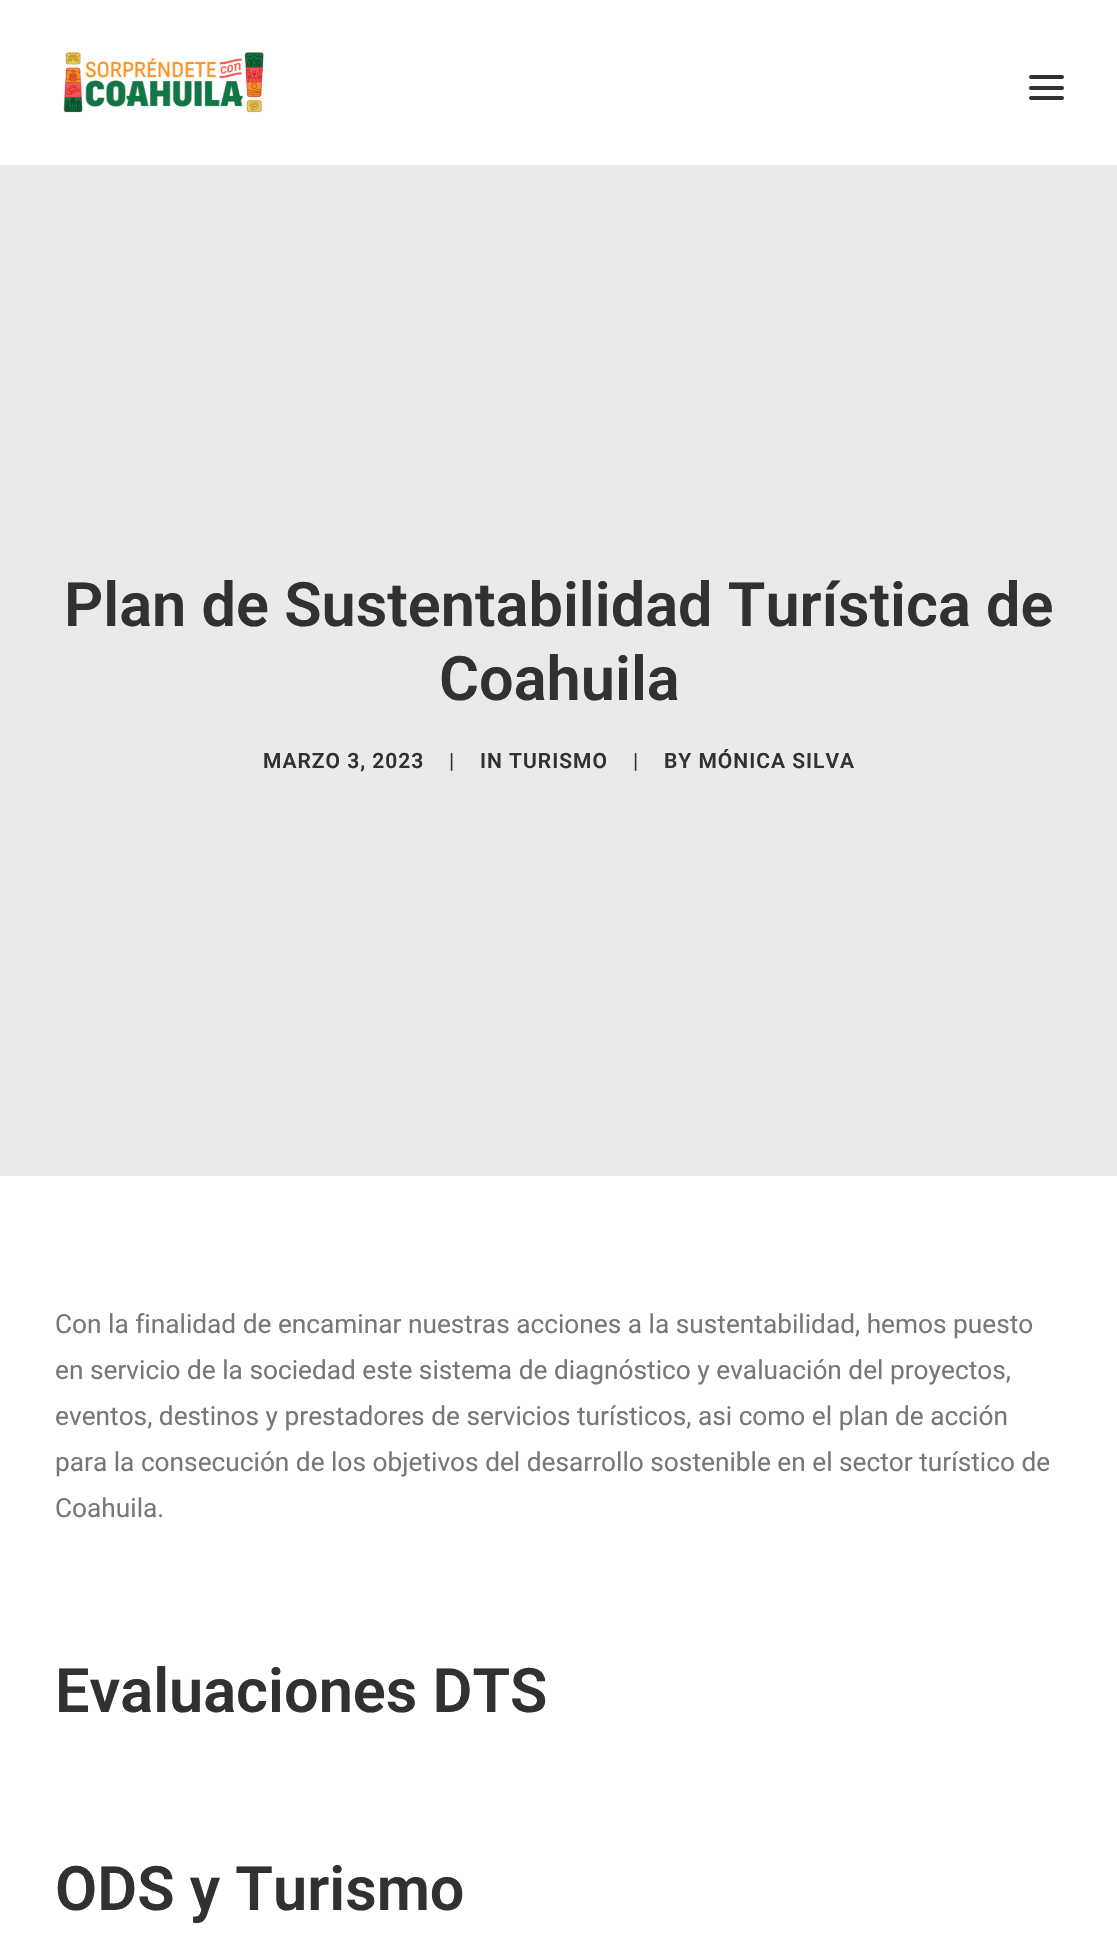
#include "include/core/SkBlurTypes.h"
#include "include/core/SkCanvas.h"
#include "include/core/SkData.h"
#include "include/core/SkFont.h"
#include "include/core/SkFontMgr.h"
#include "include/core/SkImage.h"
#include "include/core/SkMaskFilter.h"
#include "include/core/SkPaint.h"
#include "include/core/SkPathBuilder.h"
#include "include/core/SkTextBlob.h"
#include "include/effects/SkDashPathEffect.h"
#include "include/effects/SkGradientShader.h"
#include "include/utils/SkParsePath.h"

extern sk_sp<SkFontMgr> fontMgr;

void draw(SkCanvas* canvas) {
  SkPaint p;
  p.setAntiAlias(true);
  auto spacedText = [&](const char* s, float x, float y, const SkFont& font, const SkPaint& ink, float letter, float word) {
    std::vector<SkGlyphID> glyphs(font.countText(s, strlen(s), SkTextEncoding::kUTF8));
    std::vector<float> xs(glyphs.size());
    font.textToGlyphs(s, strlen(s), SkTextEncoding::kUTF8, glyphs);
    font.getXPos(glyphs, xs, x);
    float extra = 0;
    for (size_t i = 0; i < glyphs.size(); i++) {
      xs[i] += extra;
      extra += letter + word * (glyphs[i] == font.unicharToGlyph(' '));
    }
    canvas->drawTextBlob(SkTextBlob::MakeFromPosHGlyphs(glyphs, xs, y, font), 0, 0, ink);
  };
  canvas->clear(SkColorSetRGB(234, 234, 234));
  p.setColor(SK_ColorWHITE);
  canvas->drawRect(SkRect::MakeLTRB(0, 0, 1117, 165), p);
  canvas->drawImageRect(SkImages::DeferredFromEncodedData(SkData::MakeFromFileName("images/1.png")), SkRect::MakeLTRB(63, 52, 264, 113), SkSamplingOptions());
  p.setColor(SkColorSetRGB(48, 49, 51));
  canvas->drawRoundRect(SkRect::MakeLTRB(1029, 86, 1064, 90), 2, 2, p);
  canvas->drawRoundRect(SkRect::MakeLTRB(1029, 75, 1064, 79), 2, 2, p);
  canvas->drawRoundRect(SkRect::MakeLTRB(1029, 96, 1064, 100), 2, 2, p);
  p.setColor(SK_ColorWHITE);
  canvas->drawRect(SkRect::MakeLTRB(0, 1176, 1117, 1953), p);
  SkFont font1(fontMgr->matchFamilyStyle("Roboto", SkFontStyle(600, SkFontStyle::kNormal_Width, SkFontStyle::kUpright_Slant)), 61.25f);
  font1.setSubpixel(true);
  p.setColor(SkColorSetRGB(48, 49, 51));
  canvas->drawString("Plan de Sustentabilidad Turística de", 64, 626, font1, p);
  canvas->drawString("Coahuila", 439, 700, font1, p);
  SkFont font2(fontMgr->matchFamilyStyle("Roboto", SkFontStyle(600, SkFontStyle::kNormal_Width, SkFontStyle::kUpright_Slant)), 21);
  font2.setSubpixel(true);
  spacedText("MARZO 3, 2023", 263, 768, font2, p, 1, 0);
  SkFont font3(fontMgr->matchFamilyStyle("Roboto", SkFontStyle::Normal()), 21);
  font3.setSubpixel(true);
  spacedText("|", 449, 768, font3, p, 1, 0);
  spacedText("IN TURISMO", 480, 768, font2, p, 1, 0);
  spacedText("|", 633, 768, font3, p, 1, 0);
  spacedText("BY MÓNICA SILVA", 664, 768, font2, p, 1, 0);
  SkFont font4(fontMgr->matchFamilyStyle("Roboto", SkFontStyle::Normal()), 26.25f);
  font4.setSubpixel(true);
  p.setColor(SkColorSetRGB(119, 119, 119));
  canvas->drawString("Con la finalidad de encaminar nuestras acciones a la sustentabilidad, hemos puesto", 55, 1333, font4, p);
  canvas->drawString("en servicio de la sociedad este sistema de diagnóstico y evaluación del proyectos,", 55, 1379, font4, p);
  canvas->drawString("eventos, destinos y prestadores de servicios turísticos, asi como el plan de acción", 55, 1425, font4, p);
  canvas->drawString("para la consecución de los objetivos del desarrollo sostenible en el sector turístico de", 55, 1471, font4, p);
  canvas->drawString("Coahuila.", 55, 1517, font4, p);
  p.setColor(SkColorSetRGB(48, 49, 51));
  canvas->drawString("Evaluaciones DTS", 55, 1712, font1, p);
  canvas->drawString("ODS y Turismo", 55, 1910, font1, p);
}
